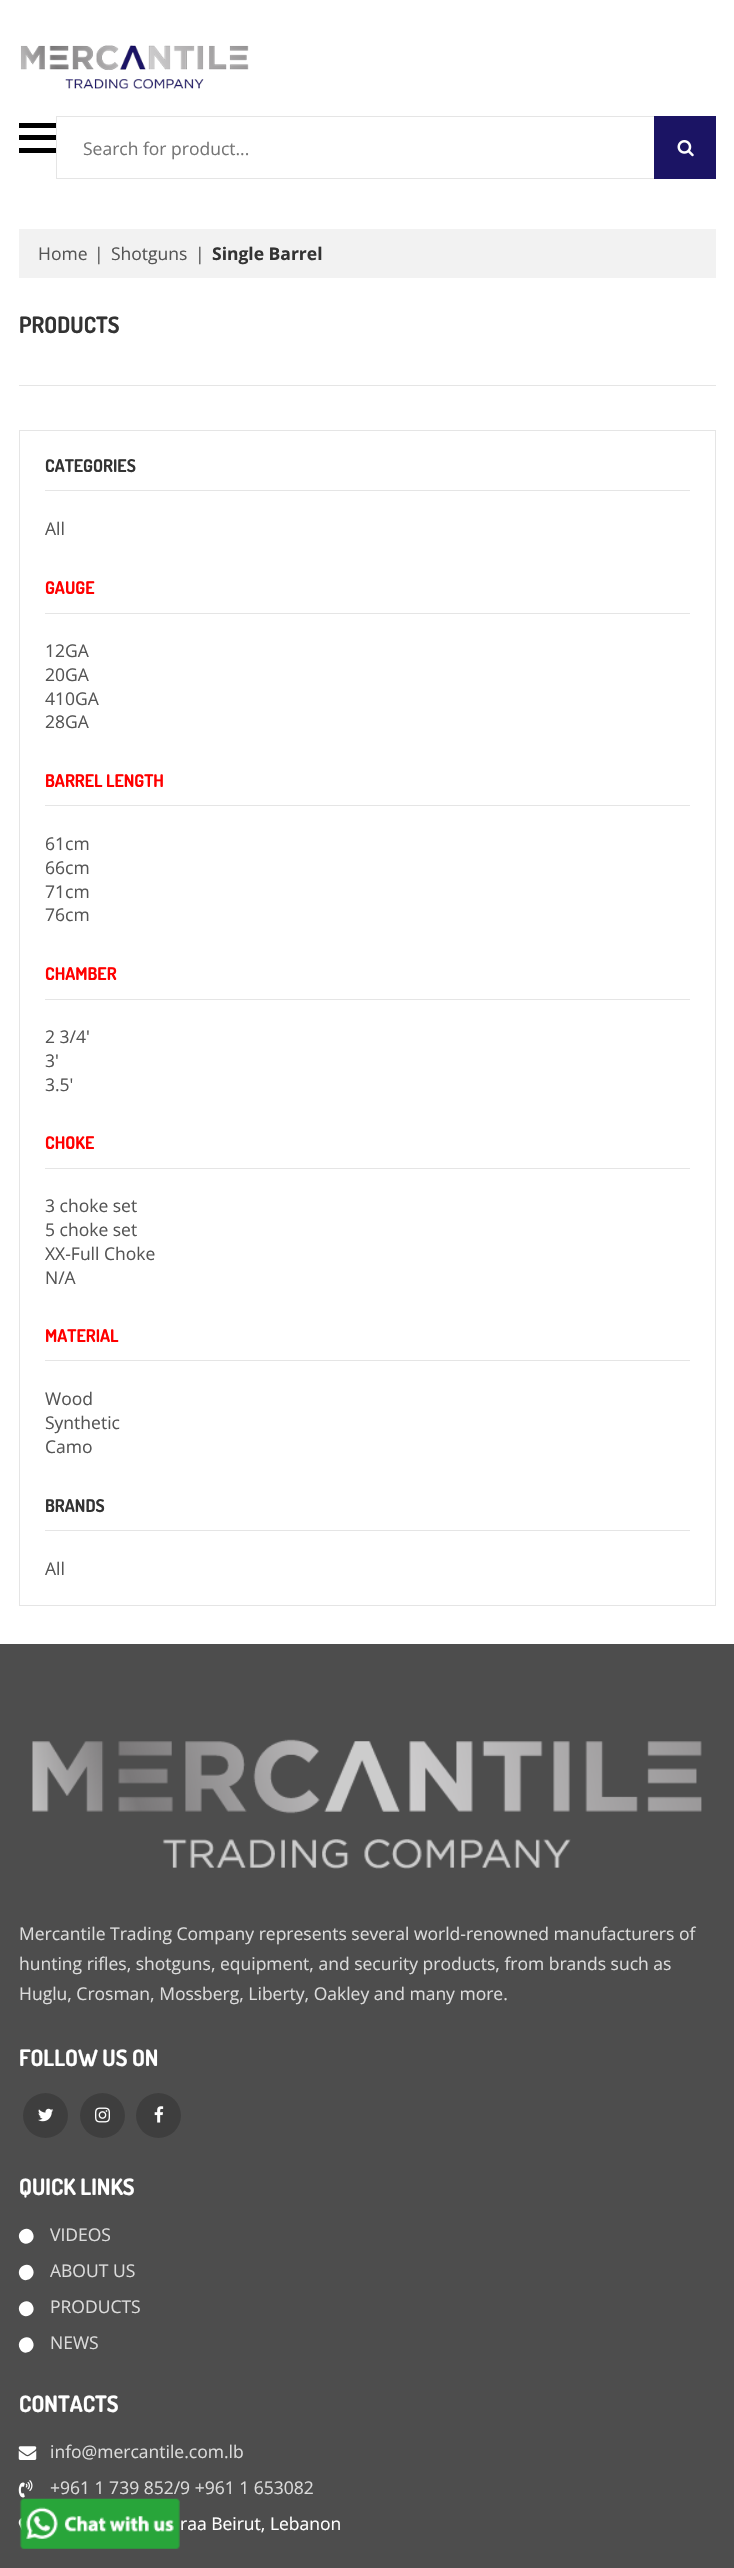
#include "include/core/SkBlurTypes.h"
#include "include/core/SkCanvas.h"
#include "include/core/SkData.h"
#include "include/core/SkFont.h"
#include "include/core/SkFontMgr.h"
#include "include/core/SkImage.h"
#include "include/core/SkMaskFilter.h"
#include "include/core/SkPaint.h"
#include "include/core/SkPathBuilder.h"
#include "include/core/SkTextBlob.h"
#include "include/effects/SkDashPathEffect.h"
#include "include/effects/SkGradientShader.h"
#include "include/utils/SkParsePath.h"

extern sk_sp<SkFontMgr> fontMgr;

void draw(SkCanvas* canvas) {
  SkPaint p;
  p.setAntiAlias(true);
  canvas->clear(SK_ColorWHITE);
  canvas->drawImageRect(SkImages::DeferredFromEncodedData(SkData::MakeFromFileName("images/1.png")), SkRect::MakeLTRB(20, 45, 249, 89), SkSamplingOptions());
  p.setColor(SK_ColorBLACK);
  canvas->drawRect(SkRect::MakeLTRB(19, 123, 56, 128), p);
  canvas->drawRect(SkRect::MakeLTRB(19, 135, 56, 140), p);
  canvas->drawRect(SkRect::MakeLTRB(19, 148, 56, 153), p);
  p.setStyle(SkPaint::kStroke_Style);
  p.setStrokeWidth(1);
  p.setColor(SkColorSetRGB(229, 229, 229));
  canvas->drawRect(SkRect::MakeLTRB(56.5f, 116.5f, 715.5f, 178.5f), p);
  p.setStyle(SkPaint::kFill_Style);
  p.setColor(SkColorSetRGB(27, 20, 100));
  canvas->drawRect(SkRect::MakeLTRB(654, 116, 716, 179), p);
  canvas->drawImageRect(SkImages::DeferredFromEncodedData(SkData::MakeFromFileName("images/2.png")), SkRect::MakeLTRB(677, 140, 694, 157), SkSamplingOptions());
  p.setColor(SkColorSetRGB(242, 242, 242));
  canvas->drawRect(SkRect::MakeLTRB(19, 229, 716, 278), p);
  p.setColor(SkColorSetRGB(229, 229, 229));
  canvas->drawRect(SkRect::MakeLTRB(19, 385, 716, 386), p);
  p.setStyle(SkPaint::kStroke_Style);
  canvas->drawRect(SkRect::MakeLTRB(19.5f, 430.5f, 715.5f, 1605.5f), p);
  p.setStyle(SkPaint::kFill_Style);
  canvas->drawRect(SkRect::MakeLTRB(45, 490, 690, 491), p);
  canvas->drawRect(SkRect::MakeLTRB(45, 613, 690, 614), p);
  canvas->drawRect(SkRect::MakeLTRB(45, 805, 690, 806), p);
  canvas->drawRect(SkRect::MakeLTRB(45, 999, 690, 1000), p);
  canvas->drawRect(SkRect::MakeLTRB(45, 1168, 690, 1169), p);
  canvas->drawRect(SkRect::MakeLTRB(45, 1360, 690, 1361), p);
  canvas->drawRect(SkRect::MakeLTRB(45, 1530, 690, 1531), p);
  p.setColor(SkColorSetRGB(77, 77, 77));
  canvas->drawRect(SkRect::MakeLTRB(0, 1644, 734, 2568), p);
  canvas->drawImageRect(SkImages::DeferredFromEncodedData(SkData::MakeFromFileName("images/3.png")), SkRect::MakeLTRB(32, 1739, 702, 1869), SkSamplingOptions());
  p.setColor(SkColorSetRGB(62, 62, 62));
  canvas->drawCircle(45.5f, 2115.5f, 22.5f, p);
  canvas->drawImageRect(SkImages::DeferredFromEncodedData(SkData::MakeFromFileName("images/4.png")), SkRect::MakeLTRB(38, 2108, 54, 2122), SkSamplingOptions());
  canvas->drawCircle(102.5f, 2115.5f, 22.5f, p);
  canvas->drawImageRect(SkImages::DeferredFromEncodedData(SkData::MakeFromFileName("images/5.png")), SkRect::MakeLTRB(95, 2107, 110, 2123), SkSamplingOptions());
  canvas->drawCircle(158.5f, 2115.5f, 22.5f, p);
  canvas->drawImageRect(SkImages::DeferredFromEncodedData(SkData::MakeFromFileName("images/6.png")), SkRect::MakeLTRB(154, 2106, 164, 2123), SkSamplingOptions());
  p.setColor(SK_ColorWHITE);
  canvas->drawPath(SkPathBuilder().moveTo(32.5f, 2232.5f).cubicTo(37.5f, 2241, 24.5f, 2248.5f, 20, 2240).cubicTo(15, 2231.5f, 28, 2224, 32.5f, 2232.5f).close().detach(), p);
  canvas->drawPath(SkPathBuilder().moveTo(32.5f, 2268.5f).cubicTo(37.5f, 2277, 24.5f, 2285, 20, 2276.5f).cubicTo(15, 2268, 28, 2260, 32.5f, 2268.5f).close().detach(), p);
  canvas->drawPath(SkPathBuilder().moveTo(32.5f, 2305).cubicTo(37.5f, 2313.5f, 24.5f, 2321, 20, 2312.5f).cubicTo(15, 2304, 28, 2296.5f, 32.5f, 2305).close().detach(), p);
  canvas->drawPath(SkPathBuilder().moveTo(32.5f, 2341).cubicTo(37.5f, 2349.5f, 24.5f, 2357.5f, 20, 2349).cubicTo(15, 2340.5f, 28, 2332.5f, 32.5f, 2341).close().detach(), p);
  canvas->drawImageRect(SkImages::DeferredFromEncodedData(SkData::MakeFromFileName("images/7.png")), SkRect::MakeLTRB(18, 2446, 37, 2460), SkSamplingOptions());
  canvas->drawImageRect(SkImages::DeferredFromEncodedData(SkData::MakeFromFileName("images/8.png")), SkRect::MakeLTRB(18, 2480, 33, 2498), SkSamplingOptions());
  canvas->drawImageRect(SkImages::DeferredFromEncodedData(SkData::MakeFromFileName("images/9.png")), SkRect::MakeLTRB(18, 2517, 22, 2531), SkSamplingOptions());
  canvas->drawImageRect(SkImages::DeferredFromEncodedData(SkData::MakeFromFileName("images/10.png")), SkRect::MakeLTRB(19, 2498, 180, 2549), SkSamplingOptions());
  SkFont font1(fontMgr->matchFamilyStyle("Open Sans", SkFontStyle::Normal()), 17.5f);
  font1.setSubpixel(true);
  p.setColor(SkColorSetRGB(117, 117, 117));
  canvas->drawString("Search for product...", 83, 155, font1, p);
  p.setColor(SkColorSetRGB(85, 85, 85));
  canvas->drawString("Home", 38, 260, font1, p);
  canvas->drawString("|", 94, 260, font1, p);
  canvas->drawString("Shotguns", 111, 260, font1, p);
  canvas->drawString("|", 195, 260, font1, p);
  SkFont font2(fontMgr->matchFamilyStyle("Open Sans", SkFontStyle::Bold()), 17.5f);
  font2.setSubpixel(true);
  p.setColor(SkColorSetRGB(51, 51, 51));
  canvas->drawString("Single Barrel", 212, 260, font2, p);
  SkFont font3(fontMgr->matchFamilyStyle("Dosis", SkFontStyle::Bold()), 22.5f);
  font3.setSubpixel(true);
  canvas->drawString("PRODUCTS", 19, 333, font3, p);
  SkFont font4(fontMgr->matchFamilyStyle("Dosis", SkFontStyle::Bold()), 17.5f);
  font4.setSubpixel(true);
  canvas->drawString("CATEGORIES", 45, 472, font4, p);
  p.setColor(SkColorSetRGB(85, 85, 85));
  canvas->drawString("All", 45, 535, font1, p);
  p.setColor(SkColorSetRGB(255, 0, 0));
  canvas->drawString("GAUGE", 45, 594, font4, p);
  p.setColor(SkColorSetRGB(85, 85, 85));
  canvas->drawString("12GA", 45, 657, font1, p);
  canvas->drawString("20GA", 45, 681, font1, p);
  canvas->drawString("410GA", 45, 705, font1, p);
  canvas->drawString("28GA", 45, 728, font1, p);
  p.setColor(SkColorSetRGB(255, 0, 0));
  canvas->drawString("BARREL LENGTH", 45, 787, font4, p);
  p.setColor(SkColorSetRGB(85, 85, 85));
  canvas->drawString("61cm", 45, 850, font1, p);
  canvas->drawString("66cm", 45, 874, font1, p);
  canvas->drawString("71cm", 45, 898, font1, p);
  canvas->drawString("76cm", 45, 921, font1, p);
  p.setColor(SkColorSetRGB(255, 0, 0));
  canvas->drawString("CHAMBER", 45, 980, font4, p);
  p.setColor(SkColorSetRGB(85, 85, 85));
  canvas->drawString("2 3/4'", 45, 1043, font1, p);
  canvas->drawString("3'", 45, 1067, font1, p);
  canvas->drawString("3.5'", 45, 1091, font1, p);
  p.setColor(SkColorSetRGB(255, 0, 0));
  canvas->drawString("CHOKE", 45, 1149, font4, p);
  p.setColor(SkColorSetRGB(85, 85, 85));
  canvas->drawString("3 choke set", 45, 1212, font1, p);
  canvas->drawString("5 choke set", 45, 1236, font1, p);
  canvas->drawString("XX-Full Choke", 45, 1260, font1, p);
  canvas->drawString("N/A", 45, 1284, font1, p);
  p.setColor(SkColorSetRGB(255, 0, 0));
  canvas->drawString("MATERIAL", 45, 1342, font4, p);
  p.setColor(SkColorSetRGB(85, 85, 85));
  canvas->drawString("Wood", 45, 1405, font1, p);
  canvas->drawString("Synthetic", 45, 1429, font1, p);
  canvas->drawString("Camo", 45, 1453, font1, p);
  p.setColor(SkColorSetRGB(51, 51, 51));
  canvas->drawString("BRANDS", 45, 1512, font4, p);
  p.setColor(SkColorSetRGB(85, 85, 85));
  canvas->drawString("All", 45, 1575, font1, p);
  p.setColor(SkColorSetRGB(219, 219, 219));
  canvas->drawString("Mercantile Trading Company represents several world-renowned manufacturers of", 19, 1940, font1, p);
  canvas->drawString("hunting rifles, shotguns, equipment, and security products, from brands such as", 19, 1970, font1, p);
  canvas->drawString("Huglu, Crosman, Mossberg, Liberty, Oakley and many more.", 19, 2000, font1, p);
  p.setColor(SK_ColorWHITE);
  canvas->drawString("FOLLOW US ON", 19, 2066, font3, p);
  canvas->drawString("QUICK LINKS", 19, 2195, font3, p);
  p.setColor(SkColorSetRGB(219, 219, 219));
  canvas->drawString("VIDEOS", 50, 2241, font1, p);
  canvas->drawString("ABOUT US", 50, 2277, font1, p);
  canvas->drawString("PRODUCTS", 50, 2313, font1, p);
  canvas->drawString("NEWS", 50, 2349, font1, p);
  p.setColor(SK_ColorWHITE);
  canvas->drawString("CONTACTS", 19, 2412, font3, p);
  p.setColor(SkColorSetRGB(219, 219, 219));
  canvas->drawString("info@mercantile.com.lb", 50, 2458, font1, p);
  canvas->drawString("+961 1 739 852/9 +961 1 653082", 50, 2494, font1, p);
  p.setColor(SK_ColorWHITE);
  canvas->drawString("raa Beirut, Lebanon", 180, 2530, font1, p);
}
